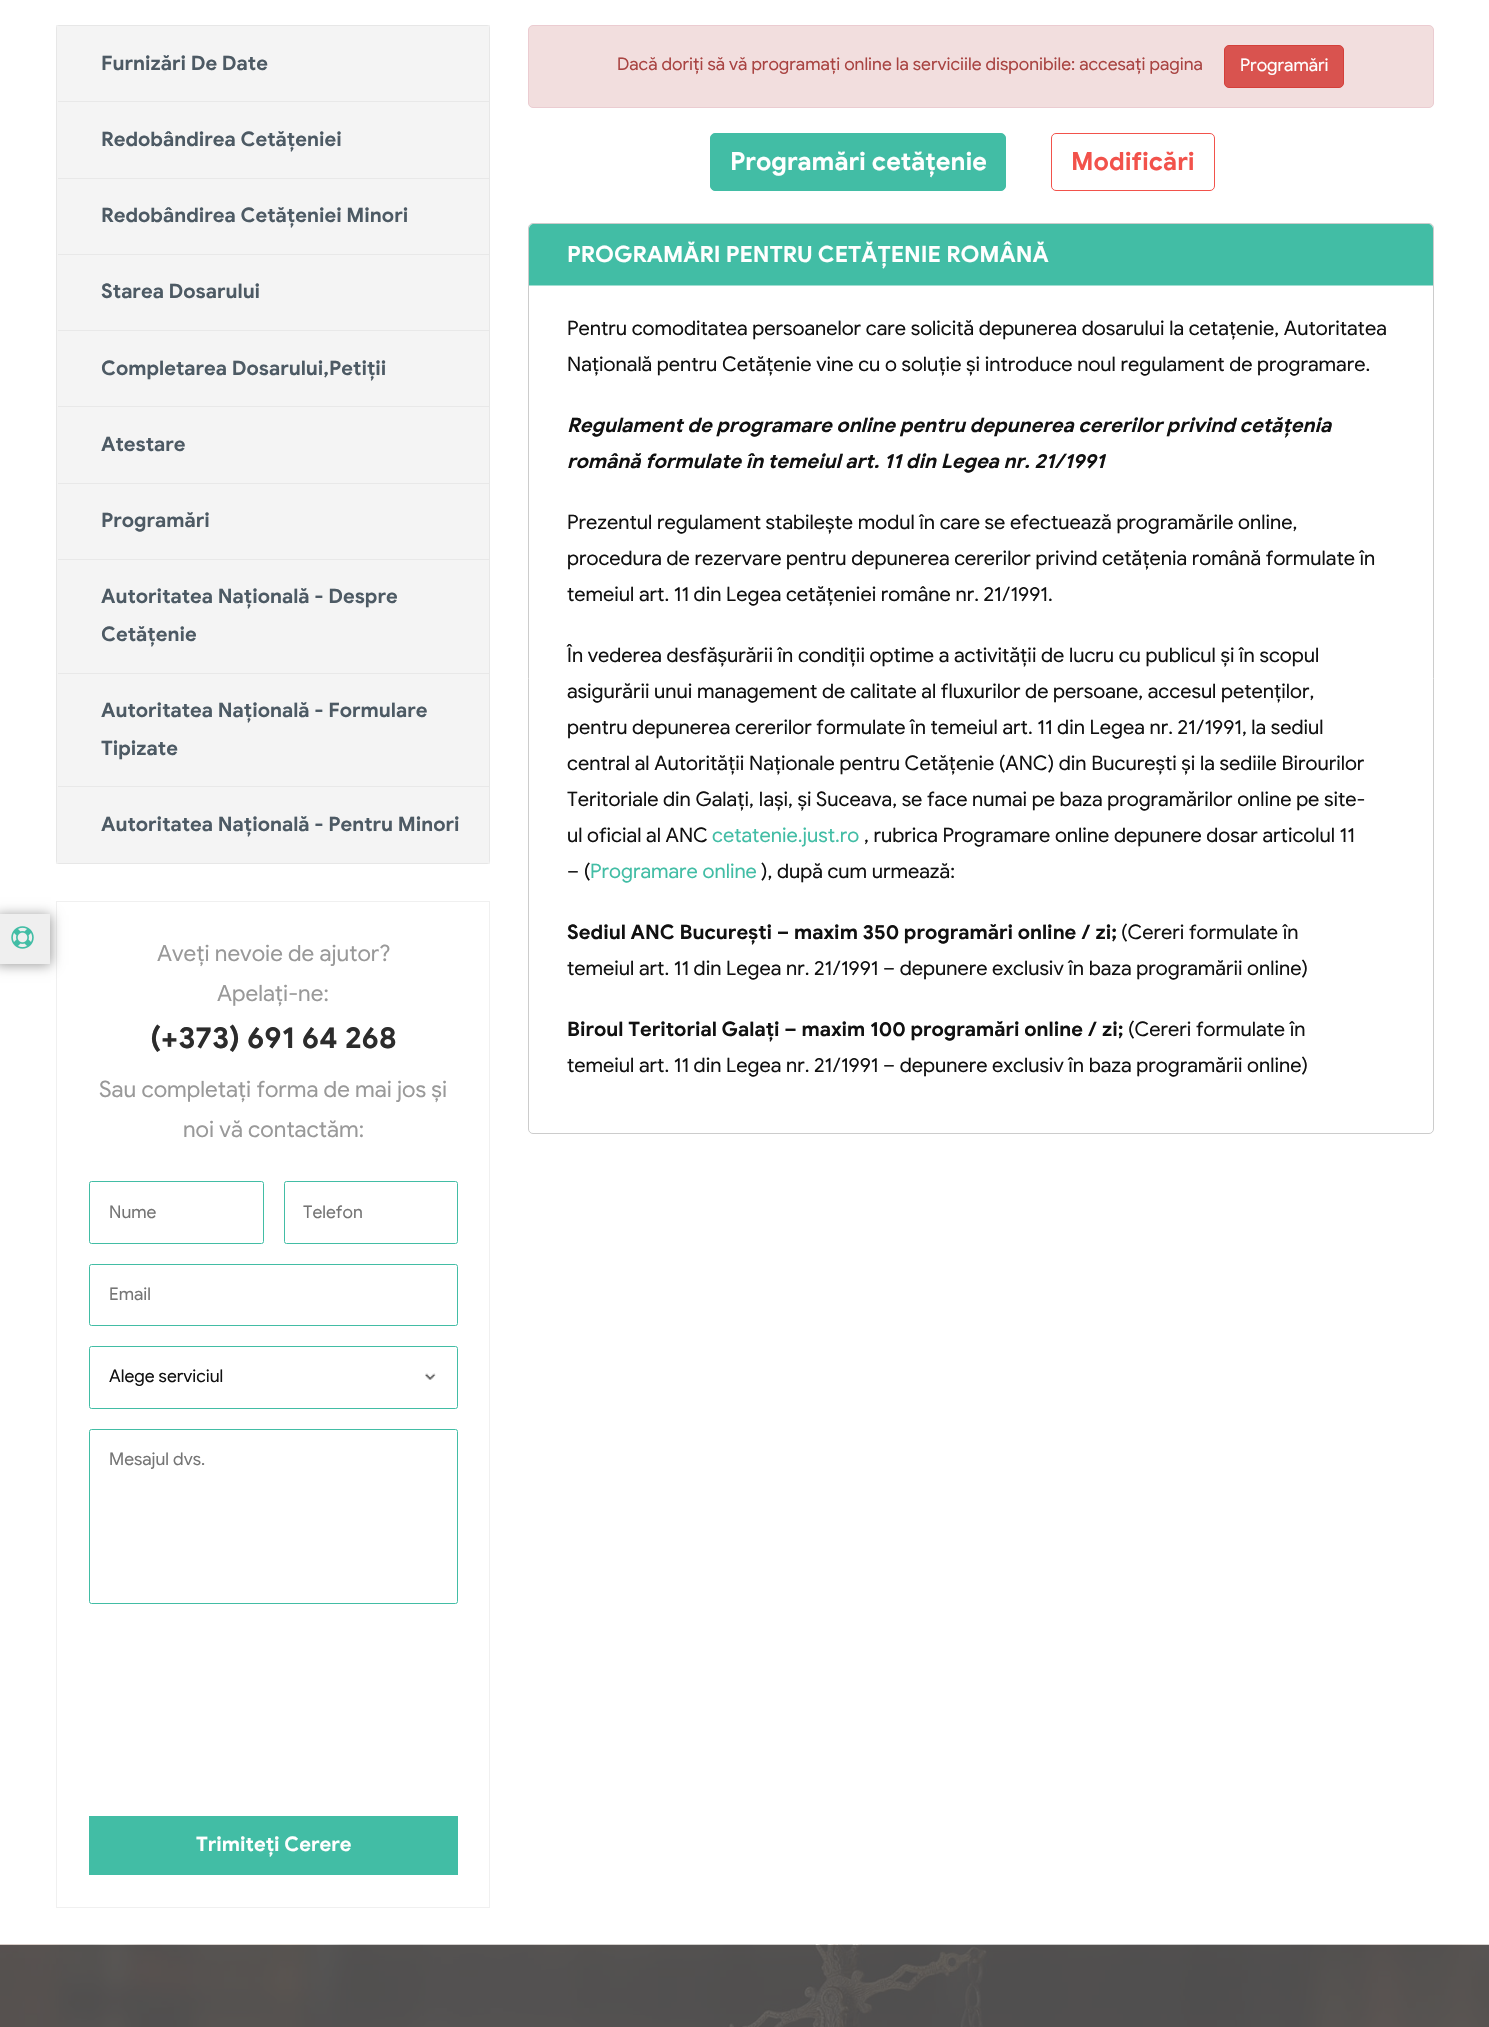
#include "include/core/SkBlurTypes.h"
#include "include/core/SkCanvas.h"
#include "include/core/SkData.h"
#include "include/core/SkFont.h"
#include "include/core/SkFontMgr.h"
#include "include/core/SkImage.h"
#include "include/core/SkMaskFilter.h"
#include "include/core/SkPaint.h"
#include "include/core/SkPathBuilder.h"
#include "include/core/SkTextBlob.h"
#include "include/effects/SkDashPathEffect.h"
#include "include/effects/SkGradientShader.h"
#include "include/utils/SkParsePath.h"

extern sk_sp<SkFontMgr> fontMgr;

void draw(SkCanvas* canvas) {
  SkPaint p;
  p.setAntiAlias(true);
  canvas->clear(SK_ColorWHITE);
  p.setColor(SkColorSetRGB(244, 244, 244));
  canvas->drawRoundRect(SkRect::MakeLTRB(56, 25, 490, 864), 4, 4, p);
  p.setStyle(SkPaint::kStroke_Style);
  p.setStrokeWidth(1);
  p.setColor(SkColorSetARGB(13, 0, 0, 0));
  canvas->drawRect(SkRect::MakeLTRB(56.5f, 25.5f, 489.5f, 863.5f), p);
  p.setStyle(SkPaint::kFill_Style);
  p.setColor(SkColorSetRGB(232, 232, 232));
  canvas->drawRect(SkRect::MakeLTRB(58, 101, 489, 102), p);
  canvas->drawRect(SkRect::MakeLTRB(58, 178, 489, 179), p);
  canvas->drawRect(SkRect::MakeLTRB(58, 254, 489, 255), p);
  canvas->drawRect(SkRect::MakeLTRB(58, 330, 489, 331), p);
  canvas->drawRect(SkRect::MakeLTRB(58, 406, 489, 407), p);
  canvas->drawRect(SkRect::MakeLTRB(58, 483, 489, 484), p);
  canvas->drawRect(SkRect::MakeLTRB(58, 559, 489, 560), p);
  canvas->drawRect(SkRect::MakeLTRB(58, 673, 489, 674), p);
  canvas->drawRect(SkRect::MakeLTRB(58, 786, 489, 787), p);
  p.setStyle(SkPaint::kStroke_Style);
  p.setColor(SkColorSetRGB(240, 240, 240));
  canvas->drawRect(SkRect::MakeLTRB(56.5f, 901.5f, 489.5f, 1907.5f), p);
  p.setColor(SkColorSetRGB(66, 189, 165));
  canvas->drawRoundRect(SkRect::MakeLTRB(89.5f, 1181.5f, 263.5f, 1243.5f), 2, 2, p);
  canvas->drawRoundRect(SkRect::MakeLTRB(284.5f, 1181.5f, 457.5f, 1243.5f), 2, 2, p);
  canvas->drawRoundRect(SkRect::MakeLTRB(89.5f, 1264.5f, 457.5f, 1325.5f), 2, 2, p);
  canvas->drawImageRect(SkImages::DeferredFromEncodedData(SkData::MakeFromFileName("images/1.png")), SkRect::MakeLTRB(425, 1373, 436, 1380), SkSamplingOptions());
  canvas->drawRoundRect(SkRect::MakeLTRB(89.5f, 1346.5f, 457.5f, 1408.5f), 2, 2, p);
  canvas->drawRoundRect(SkRect::MakeLTRB(89.5f, 1429.5f, 457.5f, 1603.5f), 2, 2, p);
  p.setStyle(SkPaint::kFill_Style);
  canvas->drawRect(SkRect::MakeLTRB(90.5f, 1817.5f, 456.5f, 1873.5f), p);
  p.setStyle(SkPaint::kStroke_Style);
  p.setStrokeWidth(3);
  canvas->drawRect(SkRect::MakeLTRB(90.5f, 1817.5f, 456.5f, 1873.5f), p);
  p.setStyle(SkPaint::kFill_Style);
  p.setColor(SkColorSetRGB(242, 222, 222));
  canvas->drawRoundRect(SkRect::MakeLTRB(528.5f, 25.5f, 1433.5f, 107.5f), 4.5f, 4.5f, p);
  p.setStyle(SkPaint::kStroke_Style);
  p.setStrokeWidth(1);
  p.setColor(SkColorSetRGB(235, 204, 209));
  canvas->drawRoundRect(SkRect::MakeLTRB(528.5f, 25.5f, 1433.5f, 107.5f), 4.5f, 4.5f, p);
  p.setStyle(SkPaint::kFill_Style);
  p.setColor(SkColorSetRGB(217, 83, 79));
  canvas->drawRoundRect(SkRect::MakeLTRB(1224.5f, 45.5f, 1343.5f, 87.5f), 4.5f, 4.5f, p);
  p.setStyle(SkPaint::kStroke_Style);
  p.setColor(SkColorSetRGB(212, 63, 58));
  canvas->drawRoundRect(SkRect::MakeLTRB(1224.5f, 45.5f, 1343.5f, 87.5f), 4.5f, 4.5f, p);
  p.setStyle(SkPaint::kFill_Style);
  p.setColor(SkColorSetRGB(66, 189, 165));
  canvas->drawRoundRect(SkRect::MakeLTRB(710.5f, 133.5f, 1005.5f, 190.5f), 4.5f, 4.5f, p);
  p.setStyle(SkPaint::kStroke_Style);
  canvas->drawRoundRect(SkRect::MakeLTRB(710.5f, 133.5f, 1005.5f, 190.5f), 4.5f, 4.5f, p);
  p.setColor(SkColorSetRGB(242, 82, 75));
  canvas->drawRoundRect(SkRect::MakeLTRB(1051.5f, 133.5f, 1214.5f, 190.5f), 4.5f, 4.5f, p);
  p.setColor(SkColorSetRGB(204, 204, 204));
  canvas->drawRoundRect(SkRect::MakeLTRB(528.5f, 223.5f, 1433.5f, 1133.5f), 4.5f, 4.5f, p);
  p.setStyle(SkPaint::kFill_Style);
  p.setColor(SkColorSetRGB(66, 189, 165));
  canvas->drawPath(SkPathBuilder().moveTo(534, 224).lineTo(1428, 224).cubicTo(1431, 224, 1433, 226, 1433, 229).lineTo(1433, 286).lineTo(529, 286).lineTo(529, 229).cubicTo(529, 226, 531, 224, 534, 224).close().detach(), p);
  p.setColor(SkColorSetRGB(161, 222, 210));
  canvas->drawRect(SkRect::MakeLTRB(529, 285, 1433, 286), p);
  canvas->drawImageRect(SkImages::DeferredFromEncodedData(SkData::MakeFromFileName("images/2.png")), SkRect::MakeLTRB(0, 1944, 1489, 2027), SkSamplingOptions());
  p.setColor(SkColorSetARGB(102, 0, 0, 0));
  p.setMaskFilter(SkMaskFilter::MakeBlur(kNormal_SkBlurStyle, 6));
  canvas->drawRect(SkRect::MakeLTRB(-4, 915, 51, 965), p);
  p.setMaskFilter(nullptr);
  p.setColor(SkColorSetRGB(239, 239, 239));
  canvas->drawRect(SkRect::MakeLTRB(0, 914, 50, 964), p);
  canvas->drawImageRect(SkImages::DeferredFromEncodedData(SkData::MakeFromFileName("images/3.png")), SkRect::MakeLTRB(11, 926, 34, 949), SkSamplingOptions());
  SkFont font1(fontMgr->matchFamilyStyle("Google Sans", SkFontStyle::Bold()), 20);
  font1.setSubpixel(true);
  p.setColor(SkColorSetRGB(77, 90, 100));
  canvas->drawString("Furnizări De Date", 101, 70, font1, p);
  canvas->drawString("Redobândirea Cetățeniei", 101, 146, font1, p);
  canvas->drawString("Redobândirea Cetățeniei Minori", 101, 222, font1, p);
  canvas->drawString("Starea Dosarului", 101, 298, font1, p);
  canvas->drawString("Completarea Dosarului,Petiții", 101, 375, font1, p);
  canvas->drawString("Atestare", 101, 451, font1, p);
  canvas->drawString("Programări", 101, 527, font1, p);
  canvas->drawString("Autoritatea Națională - Despre", 101, 603, font1, p);
  canvas->drawString("Cetățenie", 101, 641, font1, p);
  canvas->drawString("Autoritatea Națională - Formulare", 101, 717, font1, p);
  canvas->drawString("Tipizate", 101, 755, font1, p);
  canvas->drawString("Autoritatea Națională - Pentru Minori", 101, 831, font1, p);
  SkFont font2(fontMgr->matchFamilyStyle("Google Sans", SkFontStyle::Normal()), 22.5f);
  font2.setSubpixel(true);
  p.setColor(SkColorSetRGB(153, 153, 153));
  canvas->drawString("Aveți nevoie de ajutor?", 157, 961, font2, p);
  canvas->drawString("Apelați-ne:", 217, 1001, font2, p);
  SkFont font3(fontMgr->matchFamilyStyle("Google Sans", SkFontStyle::Bold()), 30);
  font3.setSubpixel(true);
  p.setColor(SkColorSetRGB(44, 44, 44));
  canvas->drawString("(+373) 691 64 268", 150, 1048, font3, p);
  p.setColor(SkColorSetRGB(153, 153, 153));
  canvas->drawString("Sau completați forma de mai jos și", 99, 1097, font2, p);
  canvas->drawString("noi vă contactăm:", 183, 1137, font2, p);
  SkFont font4(fontMgr->matchFamilyStyle("Google Sans", SkFontStyle::Normal()), 17.5f);
  font4.setSubpixel(true);
  p.setColor(SkColorSetRGB(117, 117, 117));
  canvas->drawString("Nume", 109, 1218, font4, p);
  canvas->drawString("Telefon", 303, 1218, font4, p);
  canvas->drawString("Email", 109, 1300, font4, p);
  p.setColor(SkColorSetRGB(17, 17, 17));
  canvas->drawString("Alege serviciul", 109, 1382, font4, p);
  p.setColor(SkColorSetRGB(117, 117, 117));
  canvas->drawString("Mesajul dvs.", 109, 1465, font4, p);
  p.setColor(SK_ColorWHITE);
  canvas->drawString("Trimiteți Cerere", 196, 1851, font1, p);
  p.setColor(SkColorSetRGB(169, 68, 66));
  canvas->drawString("Dacă doriți să vă programați online la serviciile disponibile: accesați pagina", 617, 70, font4, p);
  p.setColor(SK_ColorWHITE);
  canvas->drawString("Programări", 1240, 71, font4, p);
  SkFont font5(fontMgr->matchFamilyStyle("Google Sans", SkFontStyle::Bold()), 25);
  font5.setSubpixel(true);
  canvas->drawString("Programări cetățenie", 730, 170, font5, p);
  p.setColor(SkColorSetRGB(242, 82, 75));
  canvas->drawString("Modificări", 1071, 170, font5, p);
  SkFont font6(fontMgr->matchFamilyStyle("Google Sans", SkFontStyle::Bold()), 22.5f);
  font6.setSubpixel(true);
  p.setColor(SK_ColorWHITE);
  canvas->drawString("PROGRAMĂRI PENTRU CETĂȚENIE ROMÂNĂ", 567, 262, font6, p);
  SkFont font7(fontMgr->matchFamilyStyle("Google Sans", SkFontStyle::Normal()), 20);
  font7.setSubpixel(true);
  p.setColor(SkColorSetRGB(17, 17, 17));
  canvas->drawString("Pentru comoditatea persoanelor care solicită depunerea dosarului la cetațenie, Autoritatea", 567, 335, font7, p);
  canvas->drawString("Națională pentru Cetățenie vine cu o soluție și introduce noul regulament de programare.", 567, 371, font7, p);
  SkFont font8(fontMgr->matchFamilyStyle("Google Sans", SkFontStyle::BoldItalic()), 20);
  font8.setSubpixel(true);
  canvas->drawString("Regulament de programare online pentru depunerea cererilor privind cetățenia", 567, 432, font8, p);
  canvas->drawString("română formulate în temeiul art. 11 din Legea nr. 21/1991", 567, 468, font8, p);
  canvas->drawString("Prezentul regulament stabilește modul în care se efectuează programările online,", 567, 529, font7, p);
  canvas->drawString("procedura de rezervare pentru depunerea cererilor privind cetățenia română formulate în", 567, 565, font7, p);
  canvas->drawString("temeiul art. 11 din Legea cetățeniei române nr. 21/1991.", 567, 601, font7, p);
  canvas->drawString("În vederea desfășurării în condiții optime a activității de lucru cu publicul și în scopul", 567, 662, font7, p);
  canvas->drawString("asigurării unui management de calitate al fluxurilor de persoane, accesul petenților,", 567, 698, font7, p);
  canvas->drawString("pentru depunerea cererilor formulate în temeiul art. 11 din Legea nr. 21/1991, la sediul", 567, 734, font7, p);
  canvas->drawString("central al Autorității Naționale pentru Cetățenie (ANC) din București și la sediile Birourilor", 567, 770, font7, p);
  canvas->drawString("Teritoriale din Galați, Iași, și Suceava, se face numai pe baza programărilor online pe site-", 567, 806, font7, p);
  canvas->drawString("ul oficial al ANC", 567, 842, font7, p);
  p.setColor(SkColorSetRGB(66, 189, 165));
  canvas->drawString("cetatenie.just.ro", 712, 842, font7, p);
  p.setColor(SkColorSetRGB(17, 17, 17));
  canvas->drawString(", rubrica Programare online depunere dosar articolul 11", 864, 842, font7, p);
  canvas->drawString("– (", 567, 878, font7, p);
  p.setColor(SkColorSetRGB(66, 189, 165));
  canvas->drawString("Programare online", 590, 878, font7, p);
  p.setColor(SkColorSetRGB(17, 17, 17));
  canvas->drawString("), după cum urmează:", 761, 878, font7, p);
  canvas->drawString("Sediul ANC București – maxim 350 programări online / zi;", 567, 939, font1, p);
  canvas->drawString("(Cereri formulate în", 1121, 939, font7, p);
  canvas->drawString("temeiul art. 11 din Legea nr. 21/1991 – depunere exclusiv în baza programării online)", 567, 975, font7, p);
  canvas->drawString("Biroul Teritorial Galați – maxim 100 programări online / zi;", 567, 1036, font1, p);
  canvas->drawString("(Cereri formulate în", 1128, 1036, font7, p);
  canvas->drawString("temeiul art. 11 din Legea nr. 21/1991 – depunere exclusiv în baza programării online)", 567, 1072, font7, p);
}
